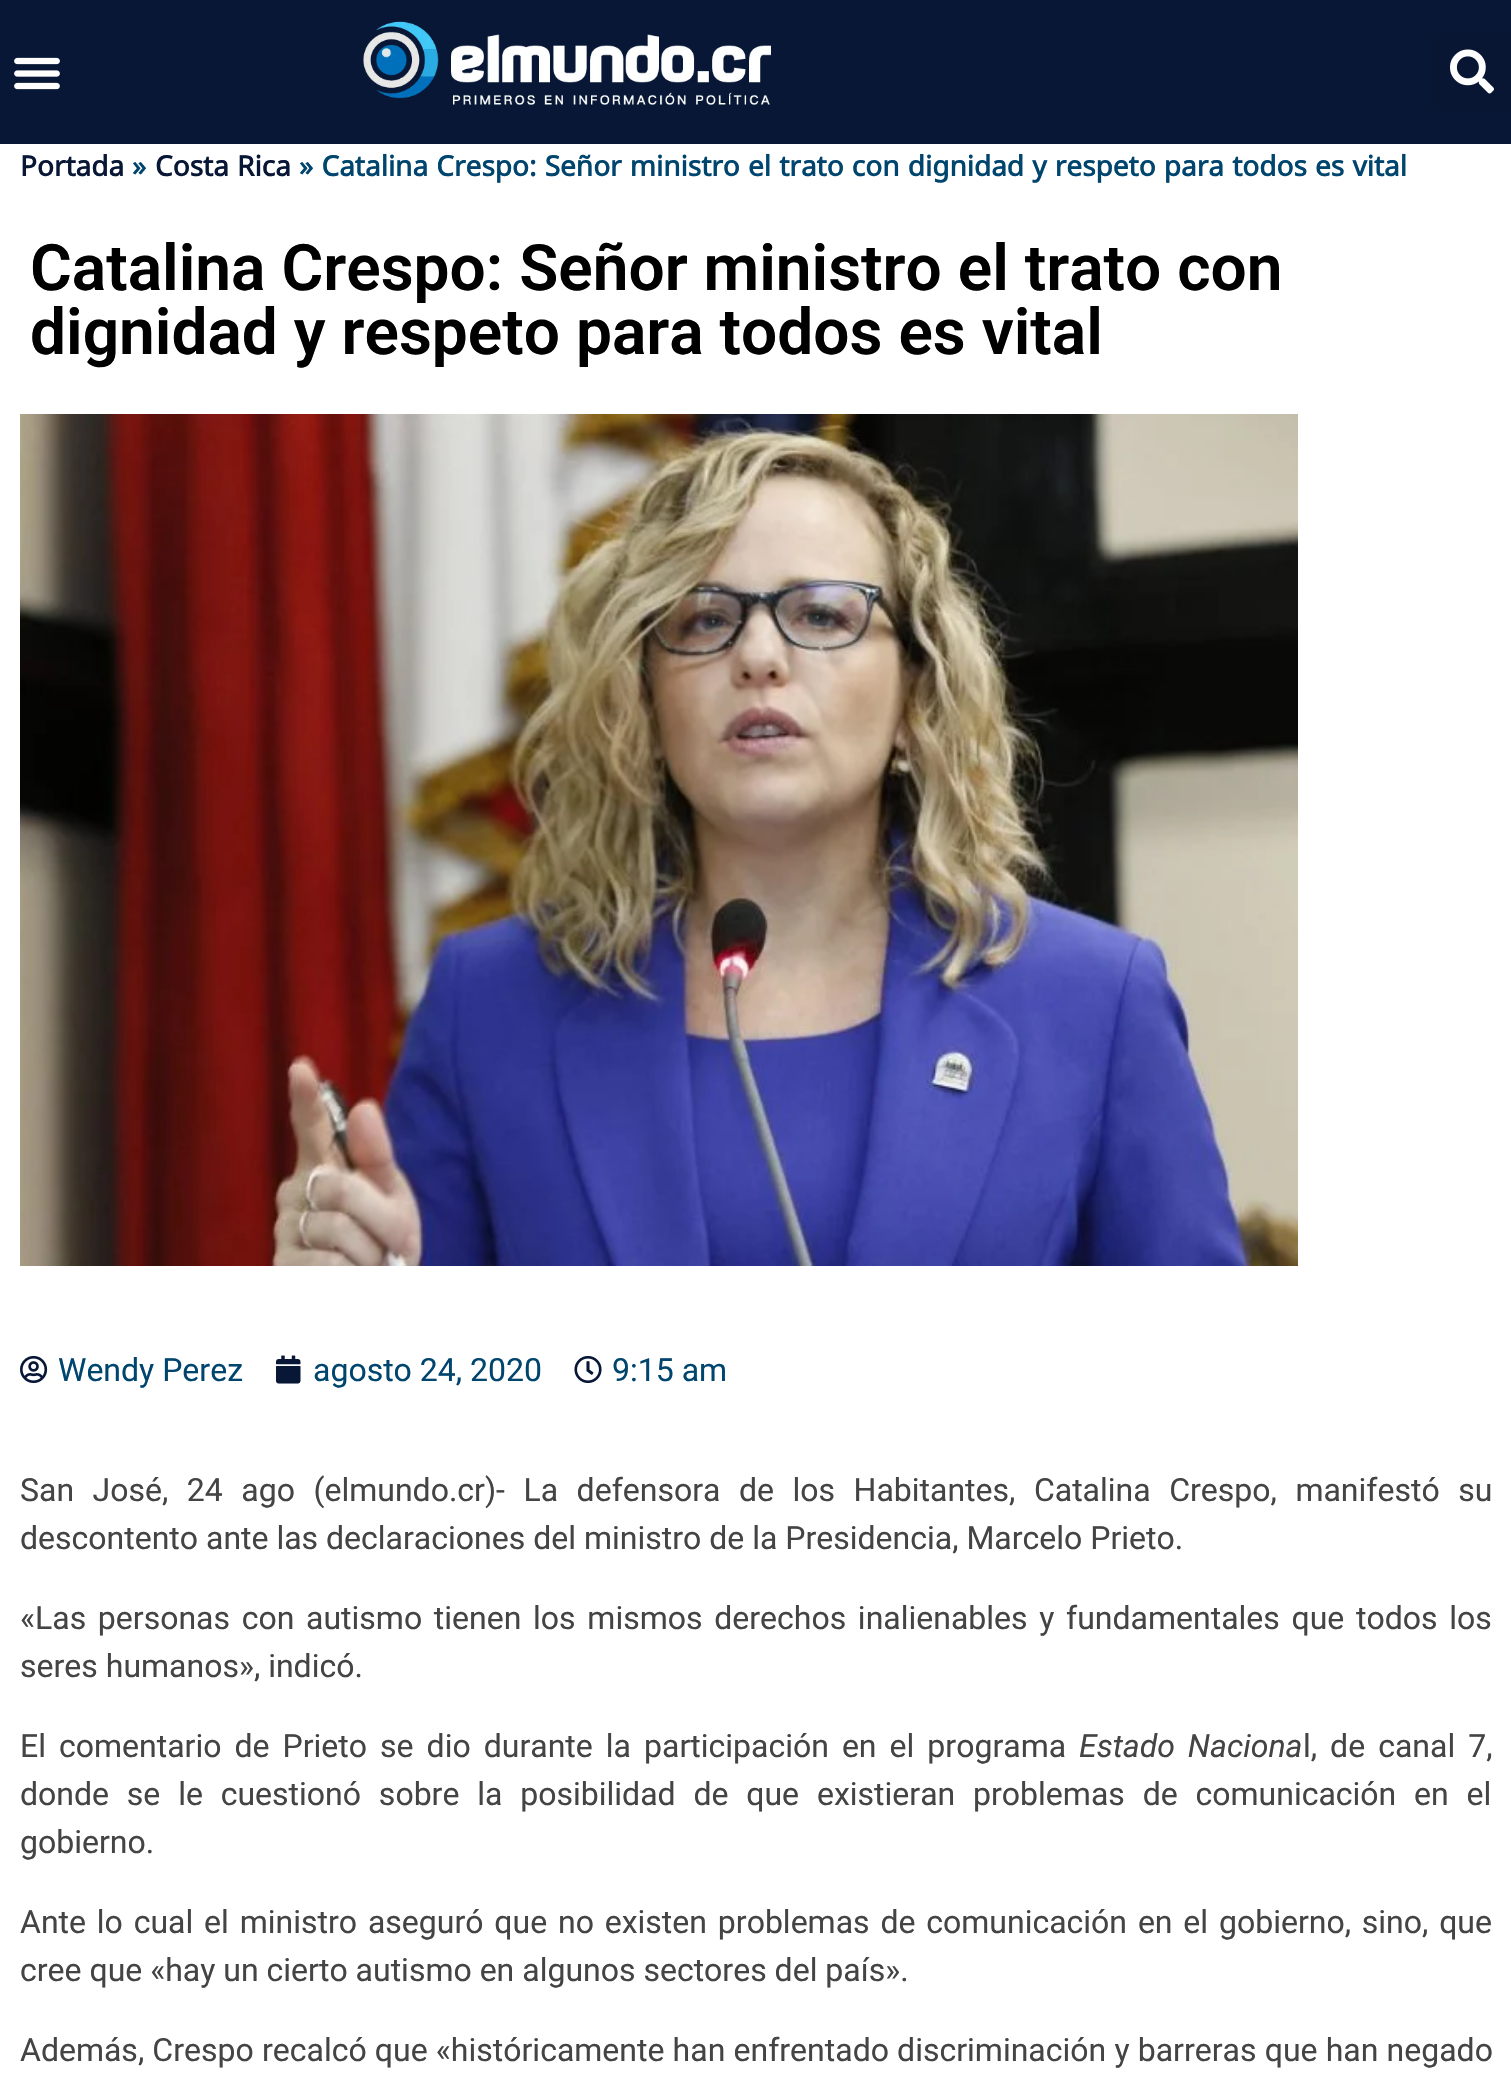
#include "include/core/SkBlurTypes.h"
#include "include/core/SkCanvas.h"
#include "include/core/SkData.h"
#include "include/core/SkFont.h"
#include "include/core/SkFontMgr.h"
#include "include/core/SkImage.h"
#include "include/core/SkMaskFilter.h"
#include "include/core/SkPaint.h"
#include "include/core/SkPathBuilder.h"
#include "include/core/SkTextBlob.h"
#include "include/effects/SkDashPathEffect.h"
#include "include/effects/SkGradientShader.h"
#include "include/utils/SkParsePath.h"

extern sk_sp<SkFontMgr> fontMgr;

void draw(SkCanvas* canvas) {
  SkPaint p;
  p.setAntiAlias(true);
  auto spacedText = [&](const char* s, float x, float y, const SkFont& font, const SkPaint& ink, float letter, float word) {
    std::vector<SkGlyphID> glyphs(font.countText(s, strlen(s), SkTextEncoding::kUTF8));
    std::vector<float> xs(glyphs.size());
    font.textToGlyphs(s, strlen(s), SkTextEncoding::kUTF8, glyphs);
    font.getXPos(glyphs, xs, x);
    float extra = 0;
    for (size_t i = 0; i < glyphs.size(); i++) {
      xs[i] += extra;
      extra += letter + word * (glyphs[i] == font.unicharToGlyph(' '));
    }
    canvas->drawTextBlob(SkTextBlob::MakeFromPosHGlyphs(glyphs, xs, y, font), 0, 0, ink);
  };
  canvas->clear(SK_ColorWHITE);
  p.setColor(SkColorSetRGB(8, 23, 54));
  canvas->drawRect(SkRect::MakeLTRB(0, 0, 1511, 144), p);
  canvas->drawImageRect(SkImages::DeferredFromEncodedData(SkData::MakeFromFileName("images/1.png")), SkRect::MakeLTRB(14, 57, 60, 90), SkSamplingOptions());
  canvas->drawImageRect(SkImages::DeferredFromEncodedData(SkData::MakeFromFileName("images/2.png")), SkRect::MakeLTRB(363, 21, 771, 105), SkSamplingOptions());
  p.setColor(SkColorSetRGB(8, 22, 51));
  canvas->drawRoundRect(SkRect::MakeLTRB(1432, 32, 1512, 112), 6, 6, p);
  canvas->drawImageRect(SkImages::DeferredFromEncodedData(SkData::MakeFromFileName("images/3.png")), SkRect::MakeLTRB(1450, 49, 1494, 94), SkSamplingOptions());
  canvas->drawImageRect(SkImages::DeferredFromEncodedData(SkData::MakeFromFileName("images/4.png")), SkRect::MakeLTRB(20, 414, 1298, 1266), SkSamplingOptions());
  canvas->drawImageRect(SkImages::DeferredFromEncodedData(SkData::MakeFromFileName("images/5.png")), SkRect::MakeLTRB(20, 1355, 48, 1384), SkSamplingOptions());
  canvas->drawImageRect(SkImages::DeferredFromEncodedData(SkData::MakeFromFileName("images/6.png")), SkRect::MakeLTRB(276, 1355, 301, 1384), SkSamplingOptions());
  canvas->drawImageRect(SkImages::DeferredFromEncodedData(SkData::MakeFromFileName("images/7.png")), SkRect::MakeLTRB(574, 1356, 602, 1383), SkSamplingOptions());
  SkFont font1(fontMgr->matchFamilyStyle("Noto Sans Osmanya", SkFontStyle::Bold()), 28);
  font1.setSubpixel(true);
  p.setColor(SkColorSetRGB(8, 23, 54));
  canvas->drawString("Portada", 20, 176, font1, p);
  p.setColor(SkColorSetRGB(0, 69, 110));
  canvas->drawString("»", 132, 176, font1, p);
  p.setColor(SkColorSetRGB(8, 23, 54));
  canvas->drawString("Costa Rica", 155, 176, font1, p);
  p.setColor(SkColorSetRGB(0, 69, 110));
  canvas->drawString("» Catalina Crespo: Señor ministro el trato con dignidad y respeto para todos es vital", 299, 176, font1, p);
  SkFont font2(fontMgr->matchFamilyStyle("Roboto", SkFontStyle(600, SkFontStyle::kNormal_Width, SkFontStyle::kUpright_Slant)), 64);
  font2.setSubpixel(true);
  p.setColor(SK_ColorBLACK);
  canvas->drawString("Catalina Crespo: Señor ministro el trato con", 30, 290, font2, p);
  canvas->drawString("dignidad y respeto para todos es vital", 30, 354, font2, p);
  SkFont font3(fontMgr->matchFamilyStyle("Roboto", SkFontStyle::Normal()), 32);
  font3.setSubpixel(true);
  p.setColor(SkColorSetRGB(0, 69, 110));
  canvas->drawString("Wendy Perez", 58, 1381, font3, p);
  canvas->drawString("agosto 24, 2020", 313, 1381, font3, p);
  canvas->drawString("9:15 am", 612, 1381, font3, p);
  p.setColor(SkColorSetRGB(68, 68, 68));
  spacedText("San José, 24 ago (elmundo.cr)- La defensora de los Habitantes, Catalina Crespo, manifestó su", 20, 1501, font3, p, 0, 10.6f);
  canvas->drawString("descontento ante las declaraciones del ministro de la Presidencia, Marcelo Prieto.", 20, 1549, font3, p);
  spacedText("«Las personas con autismo tienen los mismos derechos inalienables y fundamentales que todos los", 20, 1629, font3, p, 0, 3.75f);
  canvas->drawString("seres humanos», indicó.", 20, 1677, font3, p);
  spacedText("El comentario de Prieto se dio durante la participación en el programa", 20, 1757, font3, p, 0, 5.1f);
  SkFont font4(fontMgr->matchFamilyStyle("Roboto", SkFontStyle::Italic()), 32);
  font4.setSubpixel(true);
  spacedText("Estado Naciona", 1079, 1757, font4, p, 0, 5.1f);
  spacedText("l, de canal 7,", 1303, 1757, font3, p, 0, 5.1f);
  spacedText("donde se le cuestionó sobre la posibilidad de que existieran problemas de comunicación en el", 20, 1805, font3, p, 0, 9.9f);
  canvas->drawString("gobierno.", 20, 1853, font3, p);
  spacedText("Ante lo cual el ministro aseguró que no existen problemas de comunicación en el gobierno, sino, que", 20, 1933, font3, p, 0, 2.9f);
  canvas->drawString("cree que «hay un cierto autismo en algunos sectores del país».", 20, 1981, font3, p);
  spacedText("Además, Crespo recalcó que «históricamente han enfrentado discriminación y barreras que han negado", 20, 2061, font3, p, 0, 0.25f);
}
